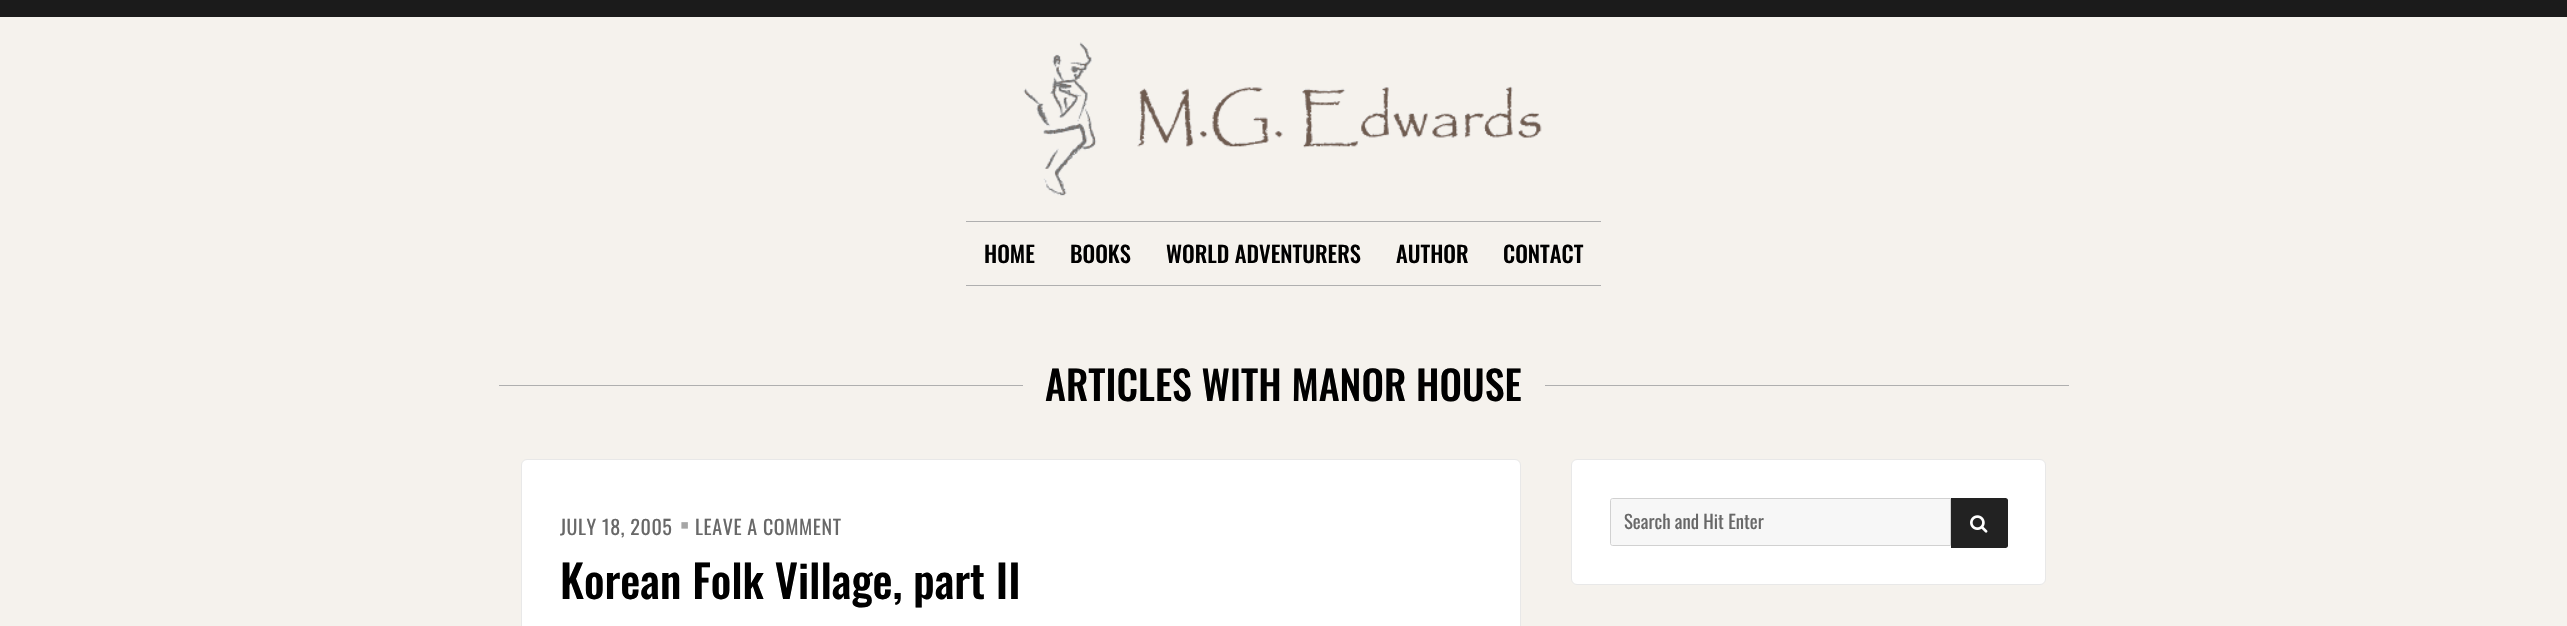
#include "include/core/SkBlurTypes.h"
#include "include/core/SkCanvas.h"
#include "include/core/SkData.h"
#include "include/core/SkFont.h"
#include "include/core/SkFontMgr.h"
#include "include/core/SkImage.h"
#include "include/core/SkMaskFilter.h"
#include "include/core/SkPaint.h"
#include "include/core/SkPathBuilder.h"
#include "include/core/SkTextBlob.h"
#include "include/effects/SkDashPathEffect.h"
#include "include/effects/SkGradientShader.h"
#include "include/utils/SkParsePath.h"

extern sk_sp<SkFontMgr> fontMgr;

void draw(SkCanvas* canvas) {
  SkPaint p;
  p.setAntiAlias(true);
  auto spacedText = [&](const char* s, float x, float y, const SkFont& font, const SkPaint& ink, float letter, float word) {
    std::vector<SkGlyphID> glyphs(font.countText(s, strlen(s), SkTextEncoding::kUTF8));
    std::vector<float> xs(glyphs.size());
    font.textToGlyphs(s, strlen(s), SkTextEncoding::kUTF8, glyphs);
    font.getXPos(glyphs, xs, x);
    float extra = 0;
    for (size_t i = 0; i < glyphs.size(); i++) {
      xs[i] += extra;
      extra += letter + word * (glyphs[i] == font.unicharToGlyph(' '));
    }
    canvas->drawTextBlob(SkTextBlob::MakeFromPosHGlyphs(glyphs, xs, y, font), 0, 0, ink);
  };
  canvas->clear(SkColorSetRGB(27, 27, 27));
  p.setColor(SkColorSetRGB(245, 242, 237));
  canvas->drawRect(SkRect::MakeLTRB(0, 17, 2567, 626), p);
  canvas->drawImageRect(SkImages::DeferredFromEncodedData(SkData::MakeFromFileName("images/1.png")), SkRect::MakeLTRB(1023, 42, 1542, 196), SkSamplingOptions());
  p.setColor(SkColorSetRGB(175, 175, 175));
  canvas->drawRect(SkRect::MakeLTRB(966, 221, 1601, 222), p);
  canvas->drawRect(SkRect::MakeLTRB(966, 285, 1601, 286), p);
  canvas->drawRect(SkRect::MakeLTRB(499, 385, 1023, 386), p);
  canvas->drawRect(SkRect::MakeLTRB(1545, 385, 2069, 386), p);
  p.setColor(SK_ColorWHITE);
  canvas->drawRoundRect(SkRect::MakeLTRB(521.5f, 459.5f, 1520.5f, 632.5f), 5.5f, 5.5f, p);
  p.setStyle(SkPaint::kStroke_Style);
  p.setStrokeWidth(1);
  p.setColor(SkColorSetRGB(232, 232, 232));
  canvas->drawRoundRect(SkRect::MakeLTRB(521.5f, 459.5f, 1520.5f, 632.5f), 5.5f, 5.5f, p);
  p.setStyle(SkPaint::kFill_Style);
  p.setColor(SK_ColorWHITE);
  canvas->drawRoundRect(SkRect::MakeLTRB(1571.5f, 459.5f, 2045.5f, 584.5f), 5.5f, 5.5f, p);
  p.setStyle(SkPaint::kStroke_Style);
  p.setColor(SkColorSetRGB(232, 232, 232));
  canvas->drawRoundRect(SkRect::MakeLTRB(1571.5f, 459.5f, 2045.5f, 584.5f), 5.5f, 5.5f, p);
  p.setStyle(SkPaint::kFill_Style);
  p.setColor(SkColorSetRGB(247, 247, 247));
  canvas->drawPath(SkPathBuilder().moveTo(1612.5f, 498.5f).lineTo(1950.5f, 498.5f).lineTo(1950.5f, 545.5f).lineTo(1612.5f, 545.5f).cubicTo(1611.5f, 545.5f, 1610.5f, 544.5f, 1610.5f, 543.5f).lineTo(1610.5f, 500.5f).cubicTo(1610.5f, 499.5f, 1611.5f, 498.5f, 1612.5f, 498.5f).close().detach(), p);
  p.setStyle(SkPaint::kStroke_Style);
  p.setColor(SkColorSetRGB(209, 209, 209));
  canvas->drawPath(SkPathBuilder().moveTo(1612.5f, 498.5f).lineTo(1950.5f, 498.5f).lineTo(1950.5f, 545.5f).lineTo(1612.5f, 545.5f).cubicTo(1611.5f, 545.5f, 1610.5f, 544.5f, 1610.5f, 543.5f).lineTo(1610.5f, 500.5f).cubicTo(1610.5f, 499.5f, 1611.5f, 498.5f, 1612.5f, 498.5f).close().detach(), p);
  p.setStyle(SkPaint::kFill_Style);
  p.setColor(SkColorSetRGB(34, 34, 34));
  canvas->drawPath(SkPathBuilder().moveTo(1951, 498).lineTo(2005.5f, 498).cubicTo(2007, 498, 2008, 499, 2008, 500.5f).lineTo(2008, 545.5f).cubicTo(2008, 547, 2007, 548, 2005.5f, 548).lineTo(1951, 548).close().detach(), p);
  canvas->drawImageRect(SkImages::DeferredFromEncodedData(SkData::MakeFromFileName("images/2.png")), SkRect::MakeLTRB(1970, 515, 1988, 533), SkSamplingOptions());
  SkFont font1(fontMgr->matchFamilyStyle("Oswald", SkFontStyle(500, SkFontStyle::kNormal_Width, SkFontStyle::kUpright_Slant)), 22.5f);
  font1.setSubpixel(true);
  p.setColor(SK_ColorBLACK);
  canvas->drawString("HOME", 984, 263, font1, p);
  canvas->drawString("BOOKS", 1070, 263, font1, p);
  canvas->drawString("WORLD ADVENTURERS", 1166, 263, font1, p);
  canvas->drawString("AUTHOR", 1396, 263, font1, p);
  canvas->drawString("CONTACT", 1503, 263, font1, p);
  SkFont font2(fontMgr->matchFamilyStyle("Oswald", SkFontStyle(500, SkFontStyle::kNormal_Width, SkFontStyle::kUpright_Slant)), 40);
  font2.setSubpixel(true);
  canvas->drawString("ARTICLES WITH MANOR HOUSE", 1045, 401, font2, p);
  SkFont font3(fontMgr->matchFamilyStyle("Oswald", SkFontStyle::Normal()), 20);
  font3.setSubpixel(true);
  p.setColor(SkColorSetRGB(104, 104, 104));
  spacedText("JULY 18, 2005", 560, 535, font3, p, 0.6f, 0);
  SkFont font4(fontMgr->matchFamilyStyle("Oswald", SkFontStyle::Bold()), 40);
  font4.setSubpixel(true);
  p.setColor(SkColorSetRGB(166, 166, 166));
  spacedText("·", 680, 541, font4, p, 0.6f, 0);
  p.setColor(SkColorSetRGB(104, 104, 104));
  spacedText("LEAVE A COMMENT", 695, 535, font3, p, 0.6f, 0);
  SkFont font5(fontMgr->matchFamilyStyle("Oswald", SkFontStyle(500, SkFontStyle::kNormal_Width, SkFontStyle::kUpright_Slant)), 45);
  font5.setSubpixel(true);
  p.setColor(SK_ColorBLACK);
  canvas->drawString("Korean Folk Village, part II", 560, 599, font5, p);
  SkFont font6(fontMgr->matchFamilyStyle("Oswald", SkFontStyle::Normal()), 18.75f);
  font6.setSubpixel(true);
  p.setColor(SkColorSetRGB(104, 104, 104));
  canvas->drawString("Search and Hit Enter", 1624, 529, font6, p);
}
